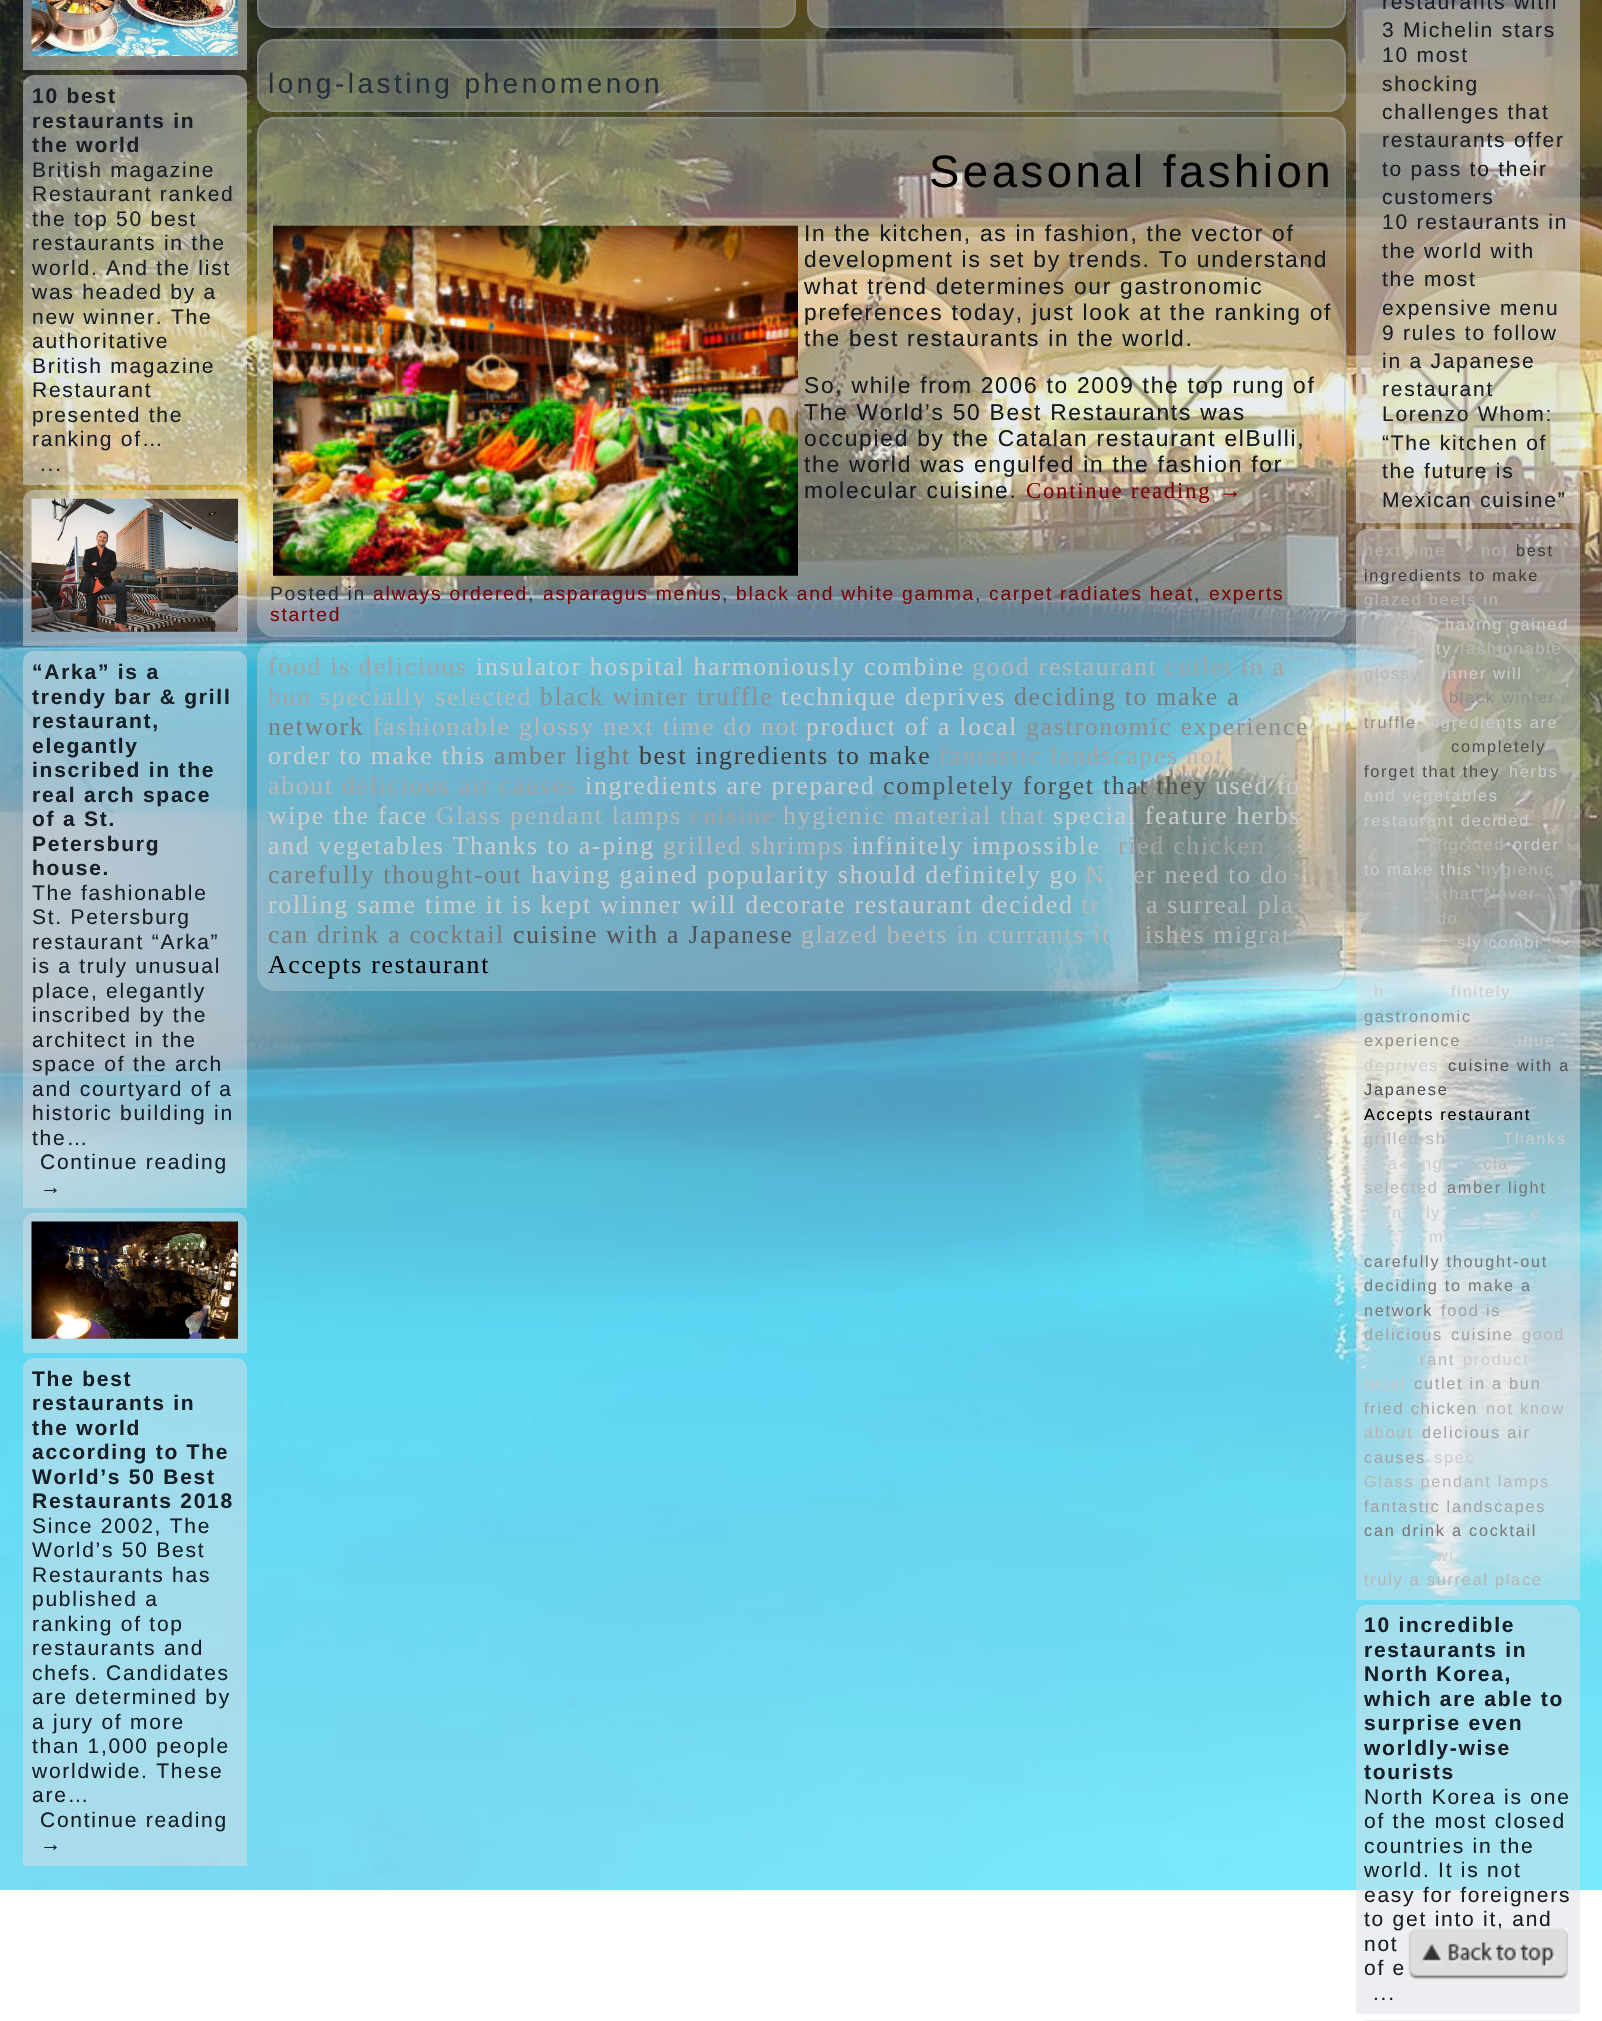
#include "include/core/SkBlurTypes.h"
#include "include/core/SkCanvas.h"
#include "include/core/SkData.h"
#include "include/core/SkFont.h"
#include "include/core/SkFontMgr.h"
#include "include/core/SkImage.h"
#include "include/core/SkMaskFilter.h"
#include "include/core/SkPaint.h"
#include "include/core/SkPathBuilder.h"
#include "include/core/SkTextBlob.h"
#include "include/effects/SkDashPathEffect.h"
#include "include/effects/SkGradientShader.h"
#include "include/utils/SkParsePath.h"

extern sk_sp<SkFontMgr> fontMgr;

void draw(SkCanvas* canvas) {
  SkPaint p;
  p.setAntiAlias(true);
  auto spacedText = [&](const char* s, float x, float y, const SkFont& font, const SkPaint& ink, float letter, float word) {
    std::vector<SkGlyphID> glyphs(font.countText(s, strlen(s), SkTextEncoding::kUTF8));
    std::vector<float> xs(glyphs.size());
    font.textToGlyphs(s, strlen(s), SkTextEncoding::kUTF8, glyphs);
    font.getXPos(glyphs, xs, x);
    float extra = 0;
    for (size_t i = 0; i < glyphs.size(); i++) {
      xs[i] += extra;
      extra += letter + word * (glyphs[i] == font.unicharToGlyph(' '));
    }
    canvas->drawTextBlob(SkTextBlob::MakeFromPosHGlyphs(glyphs, xs, y, font), 0, 0, ink);
  };
  canvas->clear(SK_ColorWHITE);
  canvas->drawImageRect(SkImages::DeferredFromEncodedData(SkData::MakeFromFileName("images/1.png")), SkRect::MakeLTRB(0, 0, 1602, 1890), SkSamplingOptions());
  p.setColor(SkColorSetARGB(128, 217, 222, 227));
  canvas->drawRect(SkRect::MakeLTRB(23, 0, 247, 70), p);
  canvas->drawImageRect(SkImages::DeferredFromEncodedData(SkData::MakeFromFileName("images/2.png")), SkRect::MakeLTRB(31, 0, 238, 56), SkSamplingOptions());
  canvas->drawPath(SkPathBuilder().moveTo(34, 75).lineTo(236, 75).cubicTo(242, 75, 247, 80, 247, 86).lineTo(247, 485).lineTo(23, 485).lineTo(23, 86).cubicTo(23, 80, 28, 75, 34, 75).close().detach(), p);
  canvas->drawPath(SkPathBuilder().moveTo(34, 490).lineTo(236, 490).cubicTo(242, 490, 247, 495, 247, 501).lineTo(247, 646).lineTo(23, 646).lineTo(23, 501).cubicTo(23, 495, 28, 490, 34, 490).close().detach(), p);
  canvas->drawImageRect(SkImages::DeferredFromEncodedData(SkData::MakeFromFileName("images/3.png")), SkRect::MakeLTRB(31, 498, 238, 632), SkSamplingOptions());
  canvas->drawPath(SkPathBuilder().moveTo(34, 651).lineTo(236, 651).cubicTo(242, 651, 247, 656, 247, 662).lineTo(247, 1208).lineTo(23, 1208).lineTo(23, 662).cubicTo(23, 656, 28, 651, 34, 651).close().detach(), p);
  canvas->drawPath(SkPathBuilder().moveTo(34, 1213).lineTo(236, 1213).cubicTo(242, 1213, 247, 1218, 247, 1224).lineTo(247, 1353).lineTo(23, 1353).lineTo(23, 1224).cubicTo(23, 1218, 28, 1213, 34, 1213).close().detach(), p);
  canvas->drawImageRect(SkImages::DeferredFromEncodedData(SkData::MakeFromFileName("images/4.png")), SkRect::MakeLTRB(31, 1221, 238, 1339), SkSamplingOptions());
  canvas->drawPath(SkPathBuilder().moveTo(34, 1358).lineTo(236, 1358).cubicTo(242, 1358, 247, 1363, 247, 1369).lineTo(247, 1866).lineTo(23, 1866).lineTo(23, 1369).cubicTo(23, 1363, 28, 1358, 34, 1358).close().detach(), p);
  p.setColor(SkColorSetARGB(77, 226, 232, 238));
  canvas->drawRoundRect(SkRect::MakeLTRB(257, -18, 796, 28), 18, 18, p);
  p.setStyle(SkPaint::kStroke_Style);
  p.setStrokeWidth(2);
  p.setColor(SkColorSetARGB(77, 156, 175, 196));
  canvas->drawRoundRect(SkRect::MakeLTRB(258, -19, 795, 27), 17, 17, p);
  p.setStyle(SkPaint::kFill_Style);
  p.setColor(SkColorSetARGB(77, 226, 232, 238));
  canvas->drawRoundRect(SkRect::MakeLTRB(807, -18, 1346, 28), 18, 18, p);
  p.setStyle(SkPaint::kStroke_Style);
  p.setColor(SkColorSetARGB(77, 156, 175, 196));
  canvas->drawRoundRect(SkRect::MakeLTRB(808, -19, 1345, 27), 17, 17, p);
  p.setStyle(SkPaint::kFill_Style);
  p.setColor(SkColorSetARGB(77, 226, 232, 238));
  canvas->drawRoundRect(SkRect::MakeLTRB(257, 39, 1346, 112), 18, 18, p);
  p.setStyle(SkPaint::kStroke_Style);
  p.setColor(SkColorSetARGB(77, 156, 175, 196));
  canvas->drawRoundRect(SkRect::MakeLTRB(258, 40, 1345, 111), 17, 17, p);
  p.setStyle(SkPaint::kFill_Style);
  p.setColor(SkColorSetARGB(77, 226, 232, 238));
  canvas->drawRoundRect(SkRect::MakeLTRB(257, 117, 1346, 637), 18, 18, p);
  p.setStyle(SkPaint::kStroke_Style);
  p.setColor(SkColorSetARGB(77, 156, 175, 196));
  canvas->drawRoundRect(SkRect::MakeLTRB(258, 118, 1345, 636), 17, 17, p);
  canvas->drawImageRect(SkImages::DeferredFromEncodedData(SkData::MakeFromFileName("images/5.png")), SkRect::MakeLTRB(273, 225, 798, 576), SkSamplingOptions());
  p.setStyle(SkPaint::kFill_Style);
  p.setColor(SkColorSetARGB(77, 226, 232, 238));
  canvas->drawRoundRect(SkRect::MakeLTRB(257, 642, 1346, 991), 18, 18, p);
  p.setStyle(SkPaint::kStroke_Style);
  p.setColor(SkColorSetARGB(77, 156, 175, 196));
  canvas->drawRoundRect(SkRect::MakeLTRB(258, 643, 1345, 990), 17, 17, p);
  p.setStyle(SkPaint::kFill_Style);
  p.setColor(SkColorSetARGB(128, 217, 222, 227));
  canvas->drawRect(SkRect::MakeLTRB(1356, 0, 1580, 523), p);
  canvas->drawPath(SkPathBuilder().moveTo(1367, 529).lineTo(1569, 529).cubicTo(1575, 529, 1580, 534, 1580, 540).lineTo(1580, 1600).lineTo(1356, 1600).lineTo(1356, 540).cubicTo(1356, 534, 1361, 529, 1367, 529).close().detach(), p);
  canvas->drawPath(SkPathBuilder().moveTo(1367, 1605).lineTo(1569, 1605).cubicTo(1575, 1605, 1580, 1610, 1580, 1616).lineTo(1580, 2014).lineTo(1356, 2014).lineTo(1356, 1616).cubicTo(1356, 1610, 1361, 1605, 1367, 1605).close().detach(), p);
  p.setColor(SkColorSetRGB(236, 239, 241));
  canvas->drawPath(SkPathBuilder().moveTo(1367, 2020).lineTo(1569, 2020).cubicTo(1575, 2020, 1580, 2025, 1580, 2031).lineTo(1580, 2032).lineTo(1356, 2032).lineTo(1356, 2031).cubicTo(1356, 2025, 1361, 2020, 1367, 2020).close().detach(), p);
  SkFont font1(fontMgr->matchFamilyStyle("Liberation Sans", SkFontStyle::Bold()), 21);
  font1.setSubpixel(true);
  p.setColor(SkColorSetRGB(23, 30, 38));
  spacedText("10 best", 32, 103, font1, p, 1.75f, 0);
  spacedText("restaurants in", 32, 128, font1, p, 1.75f, 0);
  spacedText("the world", 32, 152, font1, p, 1.75f, 0);
  SkFont font2(fontMgr->matchFamilyStyle("Liberation Sans", SkFontStyle::Normal()), 21);
  font2.setSubpixel(true);
  spacedText("British magazine", 32, 177, font2, p, 1.75f, 0);
  spacedText("Restaurant ranked", 32, 201, font2, p, 1.75f, 0);
  spacedText("the top 50 best", 32, 226, font2, p, 1.75f, 0);
  spacedText("restaurants in the", 32, 250, font2, p, 1.75f, 0);
  spacedText("world. And the list", 32, 275, font2, p, 1.75f, 0);
  spacedText("was headed by a", 32, 299, font2, p, 1.75f, 0);
  spacedText("new winner. The", 32, 324, font2, p, 1.75f, 0);
  spacedText("authoritative", 32, 348, font2, p, 1.75f, 0);
  spacedText("British magazine", 32, 373, font2, p, 1.75f, 0);
  spacedText("Restaurant", 32, 397, font2, p, 1.75f, 0);
  spacedText("presented the", 32, 422, font2, p, 1.75f, 0);
  spacedText("ranking of…", 32, 446, font2, p, 1.75f, 0);
  spacedText("...", 40, 471, font2, p, 1.75f, 0);
  spacedText("“Arka” is a", 32, 679, font1, p, 1.75f, 0);
  spacedText("trendy bar & grill", 32, 704, font1, p, 1.75f, 0);
  spacedText("restaurant,", 32, 728, font1, p, 1.75f, 0);
  spacedText("elegantly", 32, 753, font1, p, 1.75f, 0);
  spacedText("inscribed in the", 32, 777, font1, p, 1.75f, 0);
  spacedText("real arch space", 32, 802, font1, p, 1.75f, 0);
  spacedText("of a St.", 32, 826, font1, p, 1.75f, 0);
  spacedText("Petersburg", 32, 851, font1, p, 1.75f, 0);
  spacedText("house.", 32, 875, font1, p, 1.75f, 0);
  spacedText("The fashionable", 32, 900, font2, p, 1.75f, 0);
  spacedText("St. Petersburg", 32, 924, font2, p, 1.75f, 0);
  spacedText("restaurant “Arka”", 32, 949, font2, p, 1.75f, 0);
  spacedText("is a truly unusual", 32, 973, font2, p, 1.75f, 0);
  spacedText("place, elegantly", 32, 998, font2, p, 1.75f, 0);
  spacedText("inscribed by the", 32, 1022, font2, p, 1.75f, 0);
  spacedText("architect in the", 32, 1047, font2, p, 1.75f, 0);
  spacedText("space of the arch", 32, 1071, font2, p, 1.75f, 0);
  spacedText("and courtyard of a", 32, 1096, font2, p, 1.75f, 0);
  spacedText("historic building in", 32, 1120, font2, p, 1.75f, 0);
  spacedText("the…", 32, 1145, font2, p, 1.75f, 0);
  spacedText("Continue reading", 40, 1169, font2, p, 1.75f, 0);
  spacedText("→", 40, 1194, font2, p, 1.75f, 0);
  spacedText("The best", 32, 1386, font1, p, 1.75f, 0);
  spacedText("restaurants in", 32, 1410, font1, p, 1.75f, 0);
  spacedText("the world", 32, 1435, font1, p, 1.75f, 0);
  spacedText("according to The", 32, 1459, font1, p, 1.75f, 0);
  spacedText("World’s 50 Best", 32, 1484, font1, p, 1.75f, 0);
  spacedText("Restaurants 2018", 32, 1508, font1, p, 1.75f, 0);
  spacedText("Since 2002, The", 32, 1533, font2, p, 1.75f, 0);
  spacedText("World’s 50 Best", 32, 1557, font2, p, 1.75f, 0);
  spacedText("Restaurants has", 32, 1582, font2, p, 1.75f, 0);
  spacedText("published a", 32, 1606, font2, p, 1.75f, 0);
  spacedText("ranking of top", 32, 1631, font2, p, 1.75f, 0);
  spacedText("restaurants and", 32, 1655, font2, p, 1.75f, 0);
  spacedText("chefs. Candidates", 32, 1680, font2, p, 1.75f, 0);
  spacedText("are determined by", 32, 1704, font2, p, 1.75f, 0);
  spacedText("a jury of more", 32, 1729, font2, p, 1.75f, 0);
  spacedText("than 1,000 people", 32, 1753, font2, p, 1.75f, 0);
  spacedText("worldwide. These", 32, 1778, font2, p, 1.75f, 0);
  spacedText("are…", 32, 1802, font2, p, 1.75f, 0);
  spacedText("Continue reading", 40, 1827, font2, p, 1.75f, 0);
  spacedText("→", 40, 1851, font2, p, 1.75f, 0);
  SkFont font3(fontMgr->matchFamilyStyle("Liberation Sans", SkFontStyle::Normal()), 28);
  font3.setSubpixel(true);
  p.setColor(SkColorSetRGB(34, 46, 57));
  spacedText("long-lasting phenomenon", 268, 93, font3, p, 3.5f, 0);
  SkFont font4(fontMgr->matchFamilyStyle("Liberation Sans", SkFontStyle::Normal()), 45.5f);
  font4.setSubpixel(true);
  p.setColor(SK_ColorBLACK);
  spacedText("Seasonal fashion", 929, 187, font4, p, 3.5f, 0);
  SkFont font5(fontMgr->matchFamilyStyle("Liberation Sans", SkFontStyle::Normal()), 22.75f);
  font5.setSubpixel(true);
  p.setColor(SkColorSetRGB(19, 25, 32));
  spacedText("In the kitchen, as in fashion, the vector of", 804, 241, font5, p, 1.75f, 0);
  spacedText("development is set by trends. To understand", 804, 267, font5, p, 1.75f, 0);
  spacedText("what trend determines our gastronomic", 804, 294, font5, p, 1.75f, 0);
  spacedText("preferences today, just look at the ranking of", 804, 320, font5, p, 1.75f, 0);
  spacedText("the best restaurants in the world.", 804, 346, font5, p, 1.75f, 0);
  spacedText("So, while from 2006 to 2009 the top rung of", 804, 393, font5, p, 1.75f, 0);
  spacedText("The World’s 50 Best Restaurants was", 804, 420, font5, p, 1.75f, 0);
  spacedText("occupied by the Catalan restaurant elBulli,", 804, 446, font5, p, 1.75f, 0);
  spacedText("the world was engulfed in the fashion for", 804, 472, font5, p, 1.75f, 0);
  spacedText("molecular cuisine.", 804, 498, font5, p, 1.75f, 0);
  SkFont font6(fontMgr->matchFamilyStyle("Liberation Serif", SkFontStyle::Normal()), 22.75f);
  font6.setSubpixel(true);
  p.setColor(SkColorSetRGB(128, 0, 0));
  spacedText("Continue reading →", 1026, 498, font6, p, 1.75f, 0);
  SkFont font7(fontMgr->matchFamilyStyle("Liberation Sans", SkFontStyle::Normal()), 19.25f);
  font7.setSubpixel(true);
  p.setColor(SkColorSetRGB(34, 46, 57));
  spacedText("Posted in", 270, 600, font7, p, 1.75f, 0);
  p.setColor(SkColorSetRGB(128, 0, 0));
  spacedText("always ordered", 373, 600, font7, p, 1.75f, 0);
  p.setColor(SkColorSetRGB(34, 46, 57));
  spacedText(",", 528, 600, font7, p, 1.75f, 0);
  p.setColor(SkColorSetRGB(128, 0, 0));
  spacedText("asparagus menus", 543, 600, font7, p, 1.75f, 0);
  p.setColor(SkColorSetRGB(34, 46, 57));
  spacedText(",", 722, 600, font7, p, 1.75f, 0);
  p.setColor(SkColorSetRGB(128, 0, 0));
  spacedText("black and white gamma", 736, 600, font7, p, 1.75f, 0);
  p.setColor(SkColorSetRGB(34, 46, 57));
  spacedText(",", 975, 600, font7, p, 1.75f, 0);
  p.setColor(SkColorSetRGB(128, 0, 0));
  spacedText("carpet radiates heat", 989, 600, font7, p, 1.75f, 0);
  p.setColor(SkColorSetRGB(34, 46, 57));
  spacedText(",", 1194, 600, font7, p, 1.75f, 0);
  p.setColor(SkColorSetRGB(128, 0, 0));
  spacedText("experts", 1209, 600, font7, p, 1.75f, 0);
  spacedText("started", 270, 621, font7, p, 1.75f, 0);
  SkFont font8(fontMgr->matchFamilyStyle("Liberation Serif", SkFontStyle::Normal()), 25.7f);
  font8.setSubpixel(true);
  p.setColor(SkColorSetRGB(163, 163, 163));
  spacedText("food is delicious", 268, 675, font8, p, 1.75f, 0);
  p.setColor(SkColorSetRGB(204, 204, 204));
  spacedText("insulator hospital harmoniously combine", 476, 675, font8, p, 1.75f, 0);
  p.setColor(SkColorSetRGB(183, 183, 183));
  spacedText("good restaurant", 972, 675, font8, p, 1.75f, 0);
  p.setColor(SkColorSetRGB(163, 163, 163));
  spacedText("cutlet in a", 1165, 675, font8, p, 1.75f, 0);
  spacedText("bun", 268, 705, font8, p, 1.75f, 0);
  p.setColor(SkColorSetRGB(183, 183, 183));
  spacedText("specially selected", 320, 705, font8, p, 1.75f, 0);
  p.setColor(SkColorSetRGB(142, 142, 142));
  spacedText("black winter truffle", 540, 705, font8, p, 1.75f, 0);
  p.setColor(SkColorSetRGB(204, 204, 204));
  spacedText("technique deprives", 781, 705, font8, p, 1.75f, 0);
  p.setColor(SkColorSetRGB(122, 122, 122));
  spacedText("deciding to make a", 1014, 705, font8, p, 1.75f, 0);
  spacedText("network", 268, 735, font8, p, 1.75f, 0);
  p.setColor(SkColorSetRGB(183, 183, 183));
  spacedText("fashionable glossy next time do not", 373, 735, font8, p, 1.75f, 0);
  p.setColor(SkColorSetRGB(204, 204, 204));
  spacedText("product of a local", 806, 735, font8, p, 1.75f, 0);
  p.setColor(SkColorSetRGB(142, 142, 142));
  spacedText("gastronomic experience", 1026, 735, font8, p, 1.75f, 0);
  p.setColor(SkColorSetRGB(204, 204, 204));
  spacedText("order to make this", 268, 764, font8, p, 1.75f, 0);
  p.setColor(SkColorSetRGB(122, 122, 122));
  spacedText("amber light", 494, 764, font8, p, 1.75f, 0);
  p.setColor(SkColorSetRGB(61, 61, 61));
  spacedText("best ingredients to make", 639, 764, font8, p, 1.75f, 0);
  p.setColor(SkColorSetRGB(163, 163, 163));
  spacedText("fantastic landscapes", 939, 764, font8, p, 1.75f, 0);
  p.setColor(SkColorSetRGB(183, 183, 183));
  spacedText("not", 1186, 764, font8, p, 1.75f, 0);
  spacedText("about", 268, 794, font8, p, 1.75f, 0);
  p.setColor(SkColorSetRGB(163, 163, 163));
  spacedText("delicious air causes", 342, 794, font8, p, 1.75f, 0);
  p.setColor(SkColorSetRGB(204, 204, 204));
  spacedText("ingredients are prepared", 585, 794, font8, p, 1.75f, 0);
  p.setColor(SkColorSetRGB(81, 81, 81));
  spacedText("completely forget that they", 883, 794, font8, p, 1.75f, 0);
  p.setColor(SkColorSetRGB(204, 204, 204));
  spacedText("used to", 1215, 794, font8, p, 1.75f, 0);
  spacedText("wipe the face", 268, 824, font8, p, 1.75f, 0);
  p.setColor(SkColorSetRGB(183, 183, 183));
  spacedText("Glass pendant lamps", 436, 824, font8, p, 1.75f, 0);
  p.setColor(SkColorSetRGB(163, 163, 163));
  spacedText("cuisine", 690, 824, font8, p, 1.75f, 0);
  p.setColor(SkColorSetRGB(183, 183, 183));
  spacedText("hygienic material that", 783, 824, font8, p, 1.75f, 0);
  p.setColor(SkColorSetRGB(204, 204, 204));
  spacedText("special feature herbs", 1053, 824, font8, p, 1.75f, 0);
  spacedText("and vegetables Thanks to a-ping", 268, 854, font8, p, 1.75f, 0);
  p.setColor(SkColorSetRGB(183, 183, 183));
  spacedText("grilled shrimps", 663, 854, font8, p, 1.75f, 0);
  p.setColor(SkColorSetRGB(204, 204, 204));
  spacedText("infinitely impossible", 852, 854, font8, p, 1.75f, 0);
  p.setColor(SkColorSetRGB(163, 163, 163));
  spacedText("ried chicken", 1118, 854, font8, p, 1.75f, 0);
  p.setColor(SkColorSetRGB(122, 122, 122));
  spacedText("carefully thought-out", 268, 883, font8, p, 1.75f, 0);
  p.setColor(SkColorSetRGB(204, 204, 204));
  spacedText("having gained popularity should definitely go", 531, 883, font8, p, 1.75f, 0);
  p.setColor(SkColorSetRGB(183, 183, 183));
  spacedText("N", 1085, 883, font8, p, 1.75f, 0);
  spacedText("er need to do", 1133, 883, font8, p, 1.75f, 0);
  p.setColor(SkColorSetRGB(204, 204, 204));
  spacedText("rolling same time it is kept winner will decorate restaurant decided", 268, 913, font8, p, 1.75f, 0);
  p.setColor(SkColorSetRGB(183, 183, 183));
  spacedText("tr", 1081, 913, font8, p, 1.75f, 0);
  spacedText("a surreal pla", 1146, 913, font8, p, 1.75f, 0);
  p.setColor(SkColorSetRGB(122, 122, 122));
  spacedText("can drink a cocktail", 268, 943, font8, p, 1.75f, 0);
  p.setColor(SkColorSetRGB(81, 81, 81));
  spacedText("cuisine with a Japanese", 513, 943, font8, p, 1.75f, 0);
  p.setColor(SkColorSetRGB(183, 183, 183));
  spacedText("glazed beets in currants it", 801, 943, font8, p, 1.75f, 0);
  spacedText("ishes migrat", 1145, 943, font8, p, 1.75f, 0);
  p.setColor(SK_ColorBLACK);
  spacedText("Accepts restaurant", 268, 973, font8, p, 1.75f, 0);
  p.setColor(SkColorSetRGB(23, 30, 38));
  spacedText("restaurants with", 1382, 9, font2, p, 1.75f, 0);
  spacedText("3 Michelin stars", 1382, 37, font2, p, 1.75f, 0);
  spacedText("10 most", 1382, 62, font2, p, 1.75f, 0);
  spacedText("shocking", 1382, 91, font2, p, 1.75f, 0);
  spacedText("challenges that", 1382, 119, font2, p, 1.75f, 0);
  spacedText("restaurants offer", 1382, 147, font2, p, 1.75f, 0);
  spacedText("to pass to their", 1382, 176, font2, p, 1.75f, 0);
  spacedText("customers", 1382, 204, font2, p, 1.75f, 0);
  spacedText("10 restaurants in", 1382, 229, font2, p, 1.75f, 0);
  spacedText("the world with", 1382, 258, font2, p, 1.75f, 0);
  spacedText("the most", 1382, 286, font2, p, 1.75f, 0);
  spacedText("expensive menu", 1382, 315, font2, p, 1.75f, 0);
  spacedText("9 rules to follow", 1382, 340, font2, p, 1.75f, 0);
  spacedText("in a Japanese", 1382, 368, font2, p, 1.75f, 0);
  spacedText("restaurant", 1382, 396, font2, p, 1.75f, 0);
  spacedText("Lorenzo Whom:", 1382, 421, font2, p, 1.75f, 0);
  spacedText("“The kitchen of", 1382, 450, font2, p, 1.75f, 0);
  spacedText("the future is", 1382, 478, font2, p, 1.75f, 0);
  spacedText("Mexican cuisine”", 1382, 507, font2, p, 1.75f, 0);
  SkFont font9(fontMgr->matchFamilyStyle("Liberation Sans", SkFontStyle::Normal()), 16.25f);
  font9.setSubpixel(true);
  p.setColor(SkColorSetRGB(183, 183, 183));
  spacedText("next time", 1364, 556, font9, p, 1.75f, 0);
  spacedText("not", 1481, 556, font9, p, 1.75f, 0);
  p.setColor(SkColorSetRGB(61, 61, 61));
  spacedText("best", 1516, 556, font9, p, 1.75f, 0);
  spacedText("ingredients to make", 1364, 581, font9, p, 1.75f, 0);
  p.setColor(SkColorSetRGB(183, 183, 183));
  spacedText("glazed beets in", 1364, 605, font9, p, 1.75f, 0);
  p.setColor(SkColorSetRGB(204, 204, 204));
  spacedText("having gained", 1445, 630, font9, p, 1.75f, 0);
  spacedText("ty", 1436, 654, font9, p, 1.75f, 0);
  p.setColor(SkColorSetRGB(183, 183, 183));
  spacedText("fashionable", 1460, 654, font9, p, 1.75f, 0);
  spacedText("glossy", 1364, 679, font9, p, 1.75f, 0);
  p.setColor(SkColorSetRGB(204, 204, 204));
  spacedText("inner will", 1442, 679, font9, p, 1.75f, 0);
  p.setColor(SkColorSetRGB(142, 142, 142));
  spacedText("black winter", 1449, 703, font9, p, 1.75f, 0);
  spacedText("truffle", 1364, 728, font9, p, 1.75f, 0);
  p.setColor(SkColorSetRGB(204, 204, 204));
  spacedText("ngredients are", 1430, 728, font9, p, 1.75f, 0);
  p.setColor(SkColorSetRGB(81, 81, 81));
  spacedText("completely", 1451, 752, font9, p, 1.75f, 0);
  spacedText("forget that they", 1364, 777, font9, p, 1.75f, 0);
  p.setColor(SkColorSetRGB(204, 204, 204));
  spacedText("herbs", 1509, 777, font9, p, 1.75f, 0);
  spacedText("and vegetables", 1364, 801, font9, p, 1.75f, 0);
  spacedText("restaurant decided", 1364, 826, font9, p, 1.75f, 0);
  p.setColor(SkColorSetRGB(183, 183, 183));
  spacedText("migrated", 1428, 850, font9, p, 1.75f, 0);
  p.setColor(SkColorSetRGB(204, 204, 204));
  spacedText("order", 1513, 850, font9, p, 1.75f, 0);
  spacedText("to make this", 1364, 875, font9, p, 1.75f, 0);
  p.setColor(SkColorSetRGB(183, 183, 183));
  spacedText("hygienic", 1481, 875, font9, p, 1.75f, 0);
  spacedText("that", 1443, 899, font9, p, 1.75f, 0);
  spacedText("Never", 1484, 899, font9, p, 1.75f, 0);
  spacedText("do", 1437, 924, font9, p, 1.75f, 0);
  p.setColor(SkColorSetRGB(204, 204, 204));
  spacedText("sly combi", 1457, 948, font9, p, 1.75f, 0);
  spacedText("h", 1374, 997, font9, p, 1.75f, 0);
  spacedText("finitely", 1451, 997, font9, p, 1.75f, 0);
  p.setColor(SkColorSetRGB(142, 142, 142));
  spacedText("gastronomic", 1364, 1022, font9, p, 1.75f, 0);
  spacedText("experience", 1364, 1046, font9, p, 1.75f, 0);
  p.setColor(SkColorSetRGB(204, 204, 204));
  spacedText("ique", 1518, 1046, font9, p, 1.75f, 0);
  spacedText("deprives", 1364, 1071, font9, p, 1.75f, 0);
  p.setColor(SkColorSetRGB(81, 81, 81));
  spacedText("cuisine with a", 1448, 1071, font9, p, 1.75f, 0);
  spacedText("Japanese", 1364, 1095, font9, p, 1.75f, 0);
  p.setColor(SK_ColorBLACK);
  spacedText("Accepts restaurant", 1364, 1120, font9, p, 1.75f, 0);
  p.setColor(SkColorSetRGB(183, 183, 183));
  spacedText("grilled sh", 1364, 1144, font9, p, 1.75f, 0);
  p.setColor(SkColorSetRGB(204, 204, 204));
  spacedText("Thanks", 1503, 1144, font9, p, 1.75f, 0);
  spacedText("a-", 1388, 1169, font9, p, 1.75f, 0);
  spacedText("ng", 1422, 1169, font9, p, 1.75f, 0);
  p.setColor(SkColorSetRGB(183, 183, 183));
  spacedText("cia", 1483, 1169, font9, p, 1.75f, 0);
  spacedText("selected", 1364, 1193, font9, p, 1.75f, 0);
  p.setColor(SkColorSetRGB(122, 122, 122));
  spacedText("amber light", 1447, 1193, font9, p, 1.75f, 0);
  p.setColor(SkColorSetRGB(204, 204, 204));
  spacedText("n", 1392, 1218, font9, p, 1.75f, 0);
  spacedText("ly", 1426, 1218, font9, p, 1.75f, 0);
  spacedText("e", 1531, 1218, font9, p, 1.75f, 0);
  spacedText("m", 1429, 1242, font9, p, 1.75f, 0);
  p.setColor(SkColorSetRGB(122, 122, 122));
  spacedText("carefully thought-out", 1364, 1267, font9, p, 1.75f, 0);
  spacedText("deciding to make a", 1364, 1291, font9, p, 1.75f, 0);
  spacedText("network", 1364, 1316, font9, p, 1.75f, 0);
  p.setColor(SkColorSetRGB(163, 163, 163));
  spacedText("food is", 1441, 1316, font9, p, 1.75f, 0);
  spacedText("delicious", 1364, 1340, font9, p, 1.75f, 0);
  spacedText("cuisine", 1451, 1340, font9, p, 1.75f, 0);
  p.setColor(SkColorSetRGB(183, 183, 183));
  spacedText("good", 1522, 1340, font9, p, 1.75f, 0);
  spacedText("rant", 1420, 1365, font9, p, 1.75f, 0);
  p.setColor(SkColorSetRGB(204, 204, 204));
  spacedText("product", 1463, 1365, font9, p, 1.75f, 0);
  spacedText("local", 1364, 1389, font9, p, 1.75f, 0);
  p.setColor(SkColorSetRGB(163, 163, 163));
  spacedText("cutlet in a bun", 1414, 1389, font9, p, 1.75f, 0);
  spacedText("fried chicken", 1364, 1414, font9, p, 1.75f, 0);
  p.setColor(SkColorSetRGB(183, 183, 183));
  spacedText("not know", 1486, 1414, font9, p, 1.75f, 0);
  spacedText("about", 1364, 1438, font9, p, 1.75f, 0);
  p.setColor(SkColorSetRGB(163, 163, 163));
  spacedText("delicious air", 1422, 1438, font9, p, 1.75f, 0);
  spacedText("causes", 1364, 1463, font9, p, 1.75f, 0);
  p.setColor(SkColorSetRGB(204, 204, 204));
  spacedText("spec", 1434, 1463, font9, p, 1.75f, 0);
  p.setColor(SkColorSetRGB(183, 183, 183));
  spacedText("Glass pendant lamps", 1364, 1487, font9, p, 1.75f, 0);
  p.setColor(SkColorSetRGB(163, 163, 163));
  spacedText("fantastic landscapes", 1364, 1512, font9, p, 1.75f, 0);
  p.setColor(SkColorSetRGB(122, 122, 122));
  spacedText("can drink a cocktail", 1364, 1536, font9, p, 1.75f, 0);
  p.setColor(SkColorSetRGB(204, 204, 204));
  spacedText("wi", 1436, 1561, font9, p, 1.75f, 0);
  p.setColor(SkColorSetRGB(183, 183, 183));
  spacedText("truly a surreal place", 1364, 1585, font9, p, 1.75f, 0);
  p.setColor(SkColorSetRGB(23, 30, 38));
  spacedText("10 incredible", 1364, 1632, font1, p, 1.75f, 0);
  spacedText("restaurants in", 1364, 1657, font1, p, 1.75f, 0);
  spacedText("North Korea,", 1364, 1681, font1, p, 1.75f, 0);
  spacedText("which are able to", 1364, 1706, font1, p, 1.75f, 0);
  spacedText("surprise even", 1364, 1730, font1, p, 1.75f, 0);
  spacedText("worldly-wise", 1364, 1755, font1, p, 1.75f, 0);
  spacedText("tourists", 1364, 1779, font1, p, 1.75f, 0);
  spacedText("North Korea is one", 1364, 1804, font2, p, 1.75f, 0);
  spacedText("of the most closed", 1364, 1828, font2, p, 1.75f, 0);
  spacedText("countries in the", 1364, 1853, font2, p, 1.75f, 0);
  spacedText("world. It is not", 1364, 1877, font2, p, 1.75f, 0);
  spacedText("easy for foreigners", 1364, 1902, font2, p, 1.75f, 0);
  spacedText("to get into it, and", 1364, 1926, font2, p, 1.75f, 0);
  spacedText("not", 1364, 1951, font2, p, 1.75f, 0);
  spacedText("of e", 1364, 1975, font2, p, 1.75f, 0);
  spacedText("...", 1373, 2000, font2, p, 1.75f, 0);
  canvas->drawImageRect(SkImages::DeferredFromEncodedData(SkData::MakeFromFileName("images/6.png")), SkRect::MakeLTRB(1408, 1928, 1568, 1980), SkSamplingOptions());
}
